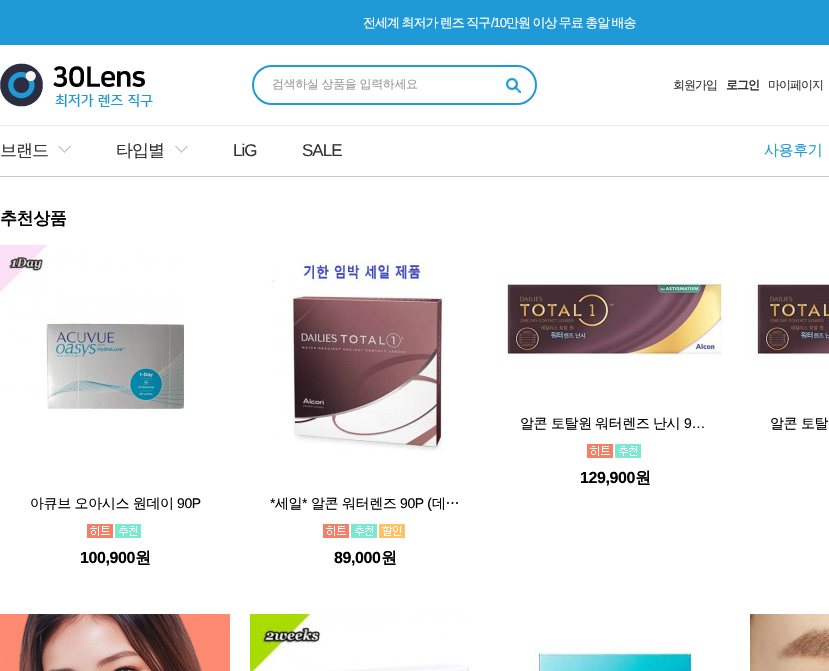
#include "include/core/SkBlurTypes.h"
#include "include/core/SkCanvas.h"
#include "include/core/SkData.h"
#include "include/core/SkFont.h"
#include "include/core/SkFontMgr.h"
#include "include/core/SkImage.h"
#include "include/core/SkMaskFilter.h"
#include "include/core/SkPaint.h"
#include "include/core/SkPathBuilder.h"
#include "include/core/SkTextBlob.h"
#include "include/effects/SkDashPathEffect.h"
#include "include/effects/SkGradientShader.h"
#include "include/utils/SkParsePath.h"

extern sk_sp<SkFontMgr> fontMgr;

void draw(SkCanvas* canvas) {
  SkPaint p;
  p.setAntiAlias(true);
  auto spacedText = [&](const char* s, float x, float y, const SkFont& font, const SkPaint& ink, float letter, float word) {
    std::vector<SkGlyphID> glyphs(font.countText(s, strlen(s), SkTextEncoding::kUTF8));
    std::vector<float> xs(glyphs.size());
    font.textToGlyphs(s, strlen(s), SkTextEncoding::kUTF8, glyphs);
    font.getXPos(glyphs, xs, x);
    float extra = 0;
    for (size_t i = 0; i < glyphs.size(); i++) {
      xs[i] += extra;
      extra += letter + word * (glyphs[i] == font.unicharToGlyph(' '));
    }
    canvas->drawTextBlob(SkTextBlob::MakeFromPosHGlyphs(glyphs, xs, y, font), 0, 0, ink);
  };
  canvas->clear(SK_ColorWHITE);
  p.setColor(SkColorSetRGB(31, 154, 214));
  canvas->drawRect(SkRect::MakeLTRB(0, 0, 829, 45), p);
  canvas->drawImageRect(SkImages::DeferredFromEncodedData(SkData::MakeFromFileName("images/1.png")), SkRect::MakeLTRB(0, 63, 153, 107), SkSamplingOptions());
  p.setStyle(SkPaint::kStroke_Style);
  p.setStrokeWidth(2);
  canvas->drawRoundRect(SkRect::MakeLTRB(253, 66, 536, 104), 19, 19, p);
  canvas->drawImageRect(SkImages::DeferredFromEncodedData(SkData::MakeFromFileName("images/2.png")), SkRect::MakeLTRB(506, 78, 521, 93), SkSamplingOptions());
  p.setStyle(SkPaint::kFill_Style);
  p.setColor(SkColorSetRGB(234, 234, 234));
  canvas->drawRect(SkRect::MakeLTRB(0, 125, 829, 126), p);
  p.setColor(SkColorSetRGB(199, 199, 199));
  canvas->drawRect(SkRect::MakeLTRB(0, 176, 829, 177), p);
  canvas->drawImageRect(SkImages::DeferredFromEncodedData(SkData::MakeFromFileName("images/3.png")), SkRect::MakeLTRB(58, 146, 71, 153), SkSamplingOptions());
  canvas->drawImageRect(SkImages::DeferredFromEncodedData(SkData::MakeFromFileName("images/3.png")), SkRect::MakeLTRB(175, 146, 188, 153), SkSamplingOptions());
  canvas->drawImageRect(SkImages::DeferredFromEncodedData(SkData::MakeFromFileName("images/4.png")), SkRect::MakeLTRB(500, 277, 724, 357), SkSamplingOptions());
  canvas->drawImageRect(SkImages::DeferredFromEncodedData(SkData::MakeFromFileName("images/5.png")), SkRect::MakeLTRB(587, 444, 613, 458), SkSamplingOptions());
  canvas->drawImageRect(SkImages::DeferredFromEncodedData(SkData::MakeFromFileName("images/6.png")), SkRect::MakeLTRB(615, 444, 641, 458), SkSamplingOptions());
  canvas->drawImageRect(SkImages::DeferredFromEncodedData(SkData::MakeFromFileName("images/7.png")), SkRect::MakeLTRB(750, 281, 829, 357), SkSamplingOptions());
  canvas->drawImageRect(SkImages::DeferredFromEncodedData(SkData::MakeFromFileName("images/8.png")), SkRect::MakeLTRB(0, 245, 184, 413), SkSamplingOptions());
  canvas->drawImageRect(SkImages::DeferredFromEncodedData(SkData::MakeFromFileName("images/5.png")), SkRect::MakeLTRB(87, 524, 113, 538), SkSamplingOptions());
  canvas->drawImageRect(SkImages::DeferredFromEncodedData(SkData::MakeFromFileName("images/6.png")), SkRect::MakeLTRB(115, 524, 141, 538), SkSamplingOptions());
  canvas->drawImageRect(SkImages::DeferredFromEncodedData(SkData::MakeFromFileName("images/9.png")), SkRect::MakeLTRB(271, 261, 446, 453), SkSamplingOptions());
  canvas->drawImageRect(SkImages::DeferredFromEncodedData(SkData::MakeFromFileName("images/5.png")), SkRect::MakeLTRB(323, 524, 349, 538), SkSamplingOptions());
  canvas->drawImageRect(SkImages::DeferredFromEncodedData(SkData::MakeFromFileName("images/6.png")), SkRect::MakeLTRB(351, 524, 377, 538), SkSamplingOptions());
  canvas->drawImageRect(SkImages::DeferredFromEncodedData(SkData::MakeFromFileName("images/10.png")), SkRect::MakeLTRB(379, 524, 405, 538), SkSamplingOptions());
  canvas->drawImageRect(SkImages::DeferredFromEncodedData(SkData::MakeFromFileName("images/11.png")), SkRect::MakeLTRB(0, 614, 230, 671), SkSamplingOptions());
  canvas->drawImageRect(SkImages::DeferredFromEncodedData(SkData::MakeFromFileName("images/12.png")), SkRect::MakeLTRB(250, 614, 470, 671), SkSamplingOptions());
  canvas->drawImageRect(SkImages::DeferredFromEncodedData(SkData::MakeFromFileName("images/13.png")), SkRect::MakeLTRB(533, 646, 692, 671), SkSamplingOptions());
  canvas->drawImageRect(SkImages::DeferredFromEncodedData(SkData::MakeFromFileName("images/14.png")), SkRect::MakeLTRB(750, 614, 829, 671), SkSamplingOptions());
  SkFont font1(fontMgr->matchFamilyStyle("WenQuanYi Zen Hei", SkFontStyle(500, SkFontStyle::kNormal_Width, SkFontStyle::kUpright_Slant)), 13);
  font1.setSubpixel(true);
  p.setColor(SK_ColorWHITE);
  spacedText("전세계 최저가 렌즈 직구", 363, 27, font1, p, -1, -0.5f);
  SkFont font2(fontMgr->matchFamilyStyle("Liberation Sans", SkFontStyle::Normal()), 13);
  font2.setSubpixel(true);
  spacedText("/10", 491, 27, font2, p, -1, 0);
  spacedText("만원 이상 무료 총알 배송", 506, 27, font1, p, -1, -0.5f);
  SkFont font3(fontMgr->matchFamilyStyle("WenQuanYi Zen Hei", SkFontStyle(500, SkFontStyle::kNormal_Width, SkFontStyle::kUpright_Slant)), 12);
  font3.setSubpixel(true);
  p.setColor(SkColorSetRGB(153, 153, 153));
  spacedText("검색하실 상품을 입력하세요", 272, 88, font3, p, -0.4f, 0);
  p.setColor(SkColorSetRGB(51, 51, 51));
  spacedText("회원가입", 673, 89, font3, p, -1, 0);
  SkFont font4(fontMgr->matchFamilyStyle("WenQuanYi Zen Hei", SkFontStyle::Bold()), 12);
  font4.setSubpixel(true);
  spacedText("로그인", 726, 89, font4, p, -1, 0);
  spacedText("마이페이지", 768, 89, font3, p, -1, 0);
  SkFont font5(fontMgr->matchFamilyStyle("WenQuanYi Zen Hei", SkFontStyle(500, SkFontStyle::kNormal_Width, SkFontStyle::kUpright_Slant)), 17);
  font5.setSubpixel(true);
  spacedText("브랜드", 0, 156, font5, p, -1, 0);
  spacedText("타입별", 116, 156, font5, p, -1, 0);
  SkFont font6(fontMgr->matchFamilyStyle("Liberation Sans", SkFontStyle::Normal()), 17);
  font6.setSubpixel(true);
  spacedText("LiG", 233, 156, font6, p, -1, 0);
  spacedText("SALE", 302, 156, font6, p, -1, 0);
  SkFont font7(fontMgr->matchFamilyStyle("WenQuanYi Zen Hei", SkFontStyle(500, SkFontStyle::kNormal_Width, SkFontStyle::kUpright_Slant)), 15);
  font7.setSubpixel(true);
  p.setColor(SkColorSetRGB(31, 154, 214));
  spacedText("사용후기", 764, 155, font7, p, -0.4f, 0);
  SkFont font8(fontMgr->matchFamilyStyle("WenQuanYi Zen Hei", SkFontStyle::Bold()), 17);
  font8.setSubpixel(true);
  p.setColor(SK_ColorBLACK);
  spacedText("추천상품", 0, 224, font8, p, -0.4f, 0);
  SkFont font9(fontMgr->matchFamilyStyle("WenQuanYi Zen Hei", SkFontStyle(500, SkFontStyle::kNormal_Width, SkFontStyle::kUpright_Slant)), 14);
  font9.setSubpixel(true);
  spacedText("알콘", 520, 428, font9, p, -0.4f, 0);
  spacedText("토탈원", 551, 428, font9, p, -0.4f, 0);
  spacedText("워터렌즈", 595, 428, font9, p, -0.4f, 0);
  spacedText("난시", 653, 428, font9, p, -0.4f, 0);
  SkFont font10(fontMgr->matchFamilyStyle("Liberation Sans", SkFontStyle::Normal()), 14);
  font10.setSubpixel(true);
  spacedText("9…", 684, 428, font10, p, -0.4f, 0);
  SkFont font11(fontMgr->matchFamilyStyle("Liberation Sans", SkFontStyle::Bold()), 16);
  font11.setSubpixel(true);
  spacedText("129,900", 580, 483, font11, p, -0.4f, 0);
  SkFont font12(fontMgr->matchFamilyStyle("WenQuanYi Zen Hei", SkFontStyle::Bold()), 16);
  font12.setSubpixel(true);
  spacedText("원", 635, 483, font12, p, -0.4f, 0);
  spacedText("알콘", 770, 428, font9, p, -0.4f, 0);
  spacedText("토탈", 801, 428, font9, p, -0.4f, 0);
  spacedText("아큐브 오아시스 원데이", 30, 508, font9, p, -0.4f, 0);
  spacedText("90P", 177, 508, font10, p, -0.4f, 0);
  spacedText("100,900", 80, 563, font11, p, -0.4f, 0);
  spacedText("원", 135, 563, font12, p, -0.4f, 0);
  spacedText("*", 270, 508, font10, p, -0.4f, 0);
  spacedText("세일", 275, 508, font9, p, -0.4f, 0);
  spacedText("*", 302, 508, font10, p, -0.4f, 0);
  spacedText("알콘", 311, 508, font9, p, -0.4f, 0);
  spacedText("워터렌즈", 342, 508, font9, p, -0.4f, 0);
  spacedText("90P (", 400, 508, font10, p, -0.4f, 0);
  spacedText("데…", 432, 508, font9, p, -0.4f, 0);
  spacedText("89,000", 334, 563, font11, p, -0.4f, 0);
  spacedText("원", 381, 563, font12, p, -0.4f, 0);
}
